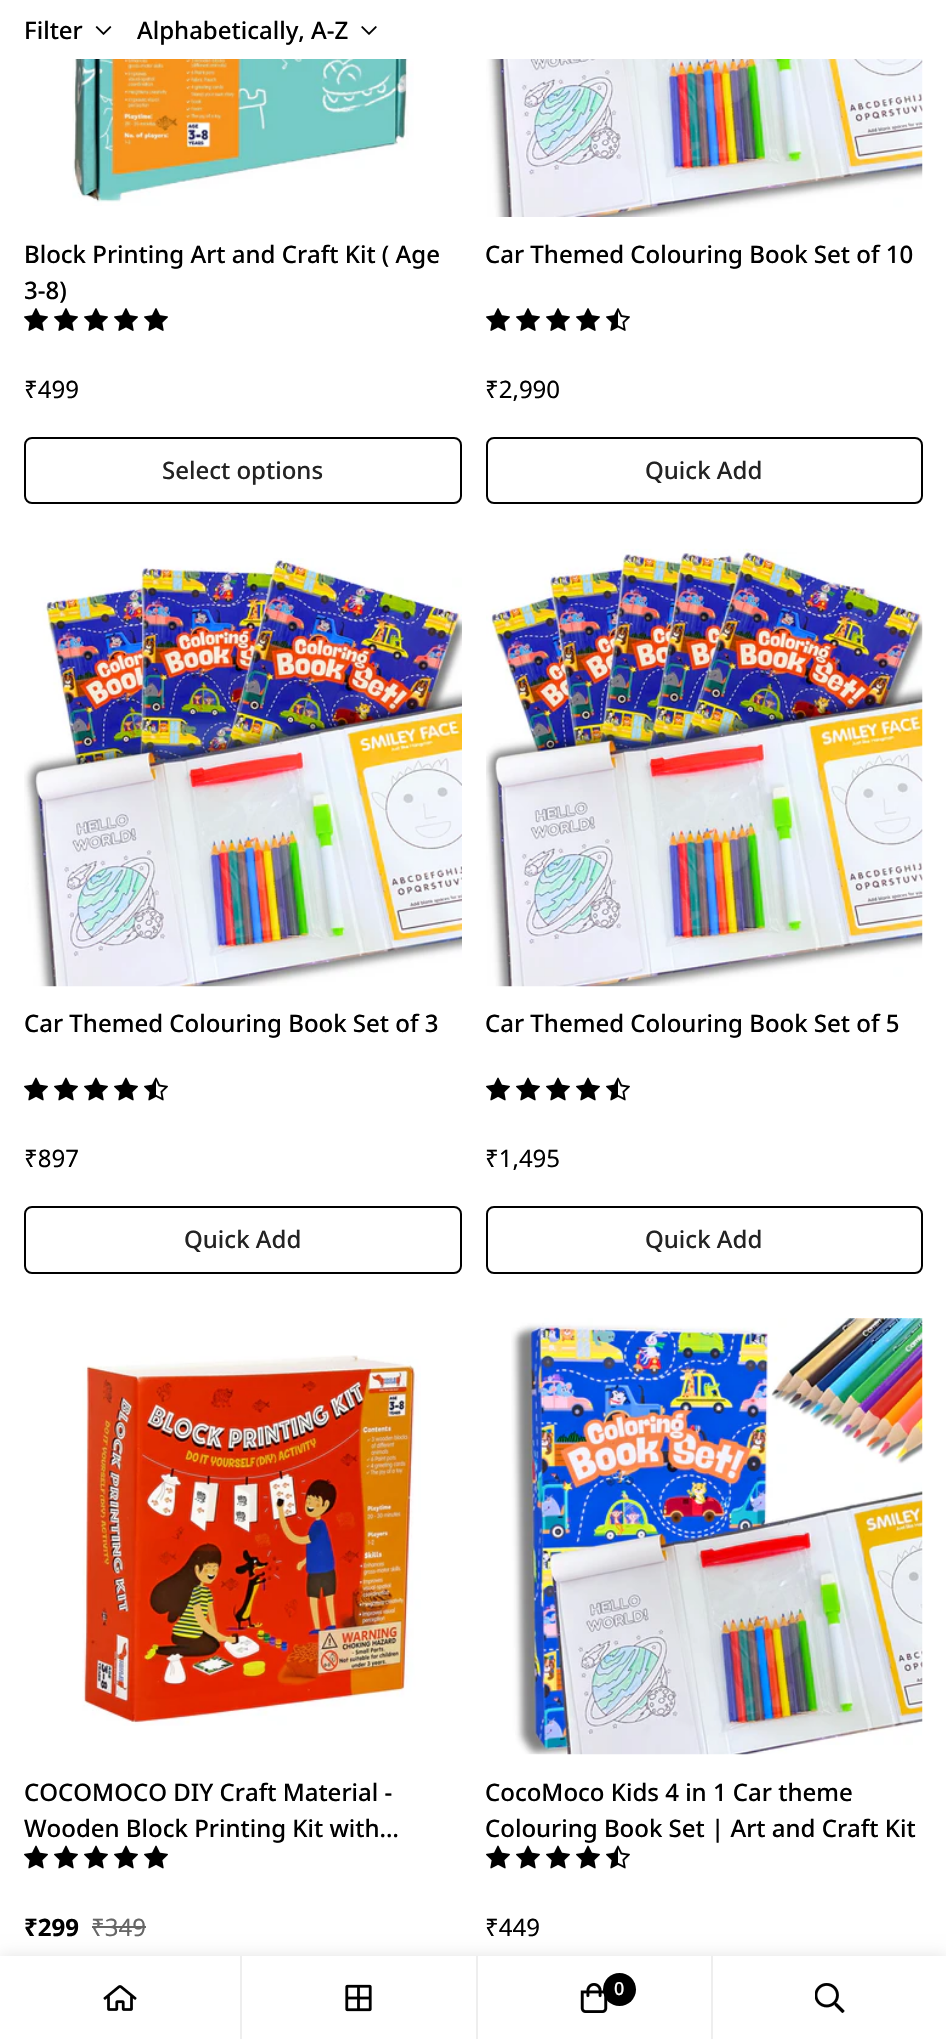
#include "include/core/SkBlurTypes.h"
#include "include/core/SkCanvas.h"
#include "include/core/SkData.h"
#include "include/core/SkFont.h"
#include "include/core/SkFontMgr.h"
#include "include/core/SkImage.h"
#include "include/core/SkMaskFilter.h"
#include "include/core/SkPaint.h"
#include "include/core/SkPathBuilder.h"
#include "include/core/SkTextBlob.h"
#include "include/effects/SkDashPathEffect.h"
#include "include/effects/SkGradientShader.h"
#include "include/utils/SkParsePath.h"

extern sk_sp<SkFontMgr> fontMgr;

void draw(SkCanvas* canvas) {
  SkPaint p;
  p.setAntiAlias(true);
  canvas->clear(SK_ColorWHITE);
  canvas->drawImageRect(SkImages::DeferredFromEncodedData(SkData::MakeFromFileName("images/1.png")), SkRect::MakeLTRB(95, 26, 112, 35), SkSamplingOptions());
  canvas->drawImageRect(SkImages::DeferredFromEncodedData(SkData::MakeFromFileName("images/2.png")), SkRect::MakeLTRB(361, 26, 377, 35), SkSamplingOptions());
  canvas->drawImageRect(SkImages::DeferredFromEncodedData(SkData::MakeFromFileName("images/3.png")), SkRect::MakeLTRB(72, 59, 414, 206), SkSamplingOptions());
  canvas->drawImageRect(SkImages::DeferredFromEncodedData(SkData::MakeFromFileName("images/4.png")), SkRect::MakeLTRB(24, 308, 48, 331), SkSamplingOptions());
  canvas->drawImageRect(SkImages::DeferredFromEncodedData(SkData::MakeFromFileName("images/4.png")), SkRect::MakeLTRB(54, 308, 78, 331), SkSamplingOptions());
  canvas->drawImageRect(SkImages::DeferredFromEncodedData(SkData::MakeFromFileName("images/4.png")), SkRect::MakeLTRB(84, 308, 108, 331), SkSamplingOptions());
  canvas->drawImageRect(SkImages::DeferredFromEncodedData(SkData::MakeFromFileName("images/4.png")), SkRect::MakeLTRB(114, 308, 138, 331), SkSamplingOptions());
  canvas->drawImageRect(SkImages::DeferredFromEncodedData(SkData::MakeFromFileName("images/4.png")), SkRect::MakeLTRB(144, 308, 168, 331), SkSamplingOptions());
  p.setStyle(SkPaint::kStroke_Style);
  p.setStrokeWidth(2);
  p.setColor(SK_ColorBLACK);
  canvas->drawRoundRect(SkRect::MakeLTRB(25, 438, 461, 503), 7, 7, p);
  canvas->drawImageRect(SkImages::DeferredFromEncodedData(SkData::MakeFromFileName("images/5.png")), SkRect::MakeLTRB(486, 59, 923, 217), SkSamplingOptions());
  canvas->drawImageRect(SkImages::DeferredFromEncodedData(SkData::MakeFromFileName("images/4.png")), SkRect::MakeLTRB(486, 308, 510, 331), SkSamplingOptions());
  canvas->drawImageRect(SkImages::DeferredFromEncodedData(SkData::MakeFromFileName("images/4.png")), SkRect::MakeLTRB(516, 308, 540, 331), SkSamplingOptions());
  canvas->drawImageRect(SkImages::DeferredFromEncodedData(SkData::MakeFromFileName("images/4.png")), SkRect::MakeLTRB(546, 308, 570, 331), SkSamplingOptions());
  canvas->drawImageRect(SkImages::DeferredFromEncodedData(SkData::MakeFromFileName("images/4.png")), SkRect::MakeLTRB(576, 308, 600, 331), SkSamplingOptions());
  canvas->drawImageRect(SkImages::DeferredFromEncodedData(SkData::MakeFromFileName("images/6.png")), SkRect::MakeLTRB(606, 308, 630, 331), SkSamplingOptions());
  canvas->drawRoundRect(SkRect::MakeLTRB(487, 438, 922, 503), 7, 7, p);
  canvas->drawImageRect(SkImages::DeferredFromEncodedData(SkData::MakeFromFileName("images/7.png")), SkRect::MakeLTRB(24, 558, 462, 987), SkSamplingOptions());
  canvas->drawImageRect(SkImages::DeferredFromEncodedData(SkData::MakeFromFileName("images/8.png")), SkRect::MakeLTRB(24, 1077, 48, 1101), SkSamplingOptions());
  canvas->drawImageRect(SkImages::DeferredFromEncodedData(SkData::MakeFromFileName("images/8.png")), SkRect::MakeLTRB(54, 1077, 78, 1101), SkSamplingOptions());
  canvas->drawImageRect(SkImages::DeferredFromEncodedData(SkData::MakeFromFileName("images/8.png")), SkRect::MakeLTRB(84, 1077, 108, 1101), SkSamplingOptions());
  canvas->drawImageRect(SkImages::DeferredFromEncodedData(SkData::MakeFromFileName("images/8.png")), SkRect::MakeLTRB(114, 1077, 138, 1101), SkSamplingOptions());
  canvas->drawImageRect(SkImages::DeferredFromEncodedData(SkData::MakeFromFileName("images/9.png")), SkRect::MakeLTRB(144, 1077, 168, 1101), SkSamplingOptions());
  canvas->drawRoundRect(SkRect::MakeLTRB(25, 1207, 461, 1273), 7, 7, p);
  canvas->drawImageRect(SkImages::DeferredFromEncodedData(SkData::MakeFromFileName("images/10.png")), SkRect::MakeLTRB(486, 548, 923, 987), SkSamplingOptions());
  canvas->drawImageRect(SkImages::DeferredFromEncodedData(SkData::MakeFromFileName("images/8.png")), SkRect::MakeLTRB(486, 1077, 510, 1101), SkSamplingOptions());
  canvas->drawImageRect(SkImages::DeferredFromEncodedData(SkData::MakeFromFileName("images/8.png")), SkRect::MakeLTRB(516, 1077, 540, 1101), SkSamplingOptions());
  canvas->drawImageRect(SkImages::DeferredFromEncodedData(SkData::MakeFromFileName("images/8.png")), SkRect::MakeLTRB(546, 1077, 570, 1101), SkSamplingOptions());
  canvas->drawImageRect(SkImages::DeferredFromEncodedData(SkData::MakeFromFileName("images/8.png")), SkRect::MakeLTRB(576, 1077, 600, 1101), SkSamplingOptions());
  canvas->drawImageRect(SkImages::DeferredFromEncodedData(SkData::MakeFromFileName("images/9.png")), SkRect::MakeLTRB(606, 1077, 630, 1101), SkSamplingOptions());
  canvas->drawRoundRect(SkRect::MakeLTRB(487, 1207, 922, 1273), 7, 7, p);
  canvas->drawImageRect(SkImages::DeferredFromEncodedData(SkData::MakeFromFileName("images/11.png")), SkRect::MakeLTRB(82, 1355, 421, 1726), SkSamplingOptions());
  canvas->drawImageRect(SkImages::DeferredFromEncodedData(SkData::MakeFromFileName("images/8.png")), SkRect::MakeLTRB(24, 1845, 48, 1869), SkSamplingOptions());
  canvas->drawImageRect(SkImages::DeferredFromEncodedData(SkData::MakeFromFileName("images/8.png")), SkRect::MakeLTRB(54, 1845, 78, 1869), SkSamplingOptions());
  canvas->drawImageRect(SkImages::DeferredFromEncodedData(SkData::MakeFromFileName("images/8.png")), SkRect::MakeLTRB(84, 1845, 108, 1869), SkSamplingOptions());
  canvas->drawImageRect(SkImages::DeferredFromEncodedData(SkData::MakeFromFileName("images/8.png")), SkRect::MakeLTRB(114, 1845, 138, 1869), SkSamplingOptions());
  canvas->drawImageRect(SkImages::DeferredFromEncodedData(SkData::MakeFromFileName("images/8.png")), SkRect::MakeLTRB(144, 1845, 168, 1869), SkSamplingOptions());
  p.setStyle(SkPaint::kFill_Style);
  p.setColor(SkColorSetRGB(102, 102, 102));
  canvas->drawRect(SkRect::MakeLTRB(92, 1926, 146, 1928), p);
  canvas->drawImageRect(SkImages::DeferredFromEncodedData(SkData::MakeFromFileName("images/12.png")), SkRect::MakeLTRB(511, 1318, 923, 1755), SkSamplingOptions());
  canvas->drawImageRect(SkImages::DeferredFromEncodedData(SkData::MakeFromFileName("images/8.png")), SkRect::MakeLTRB(486, 1845, 510, 1869), SkSamplingOptions());
  canvas->drawImageRect(SkImages::DeferredFromEncodedData(SkData::MakeFromFileName("images/8.png")), SkRect::MakeLTRB(516, 1845, 540, 1869), SkSamplingOptions());
  canvas->drawImageRect(SkImages::DeferredFromEncodedData(SkData::MakeFromFileName("images/8.png")), SkRect::MakeLTRB(546, 1845, 570, 1869), SkSamplingOptions());
  canvas->drawImageRect(SkImages::DeferredFromEncodedData(SkData::MakeFromFileName("images/8.png")), SkRect::MakeLTRB(576, 1845, 600, 1869), SkSamplingOptions());
  canvas->drawImageRect(SkImages::DeferredFromEncodedData(SkData::MakeFromFileName("images/9.png")), SkRect::MakeLTRB(606, 1845, 630, 1869), SkSamplingOptions());
  p.setColor(SkColorSetARGB(28, 0, 0, 0));
  p.setMaskFilter(SkMaskFilter::MakeBlur(kNormal_SkBlurStyle, 7.5f));
  canvas->drawRect(SkRect::MakeLTRB(0, 1956, 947, 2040), p);
  p.setMaskFilter(nullptr);
  p.setColor(SK_ColorWHITE);
  canvas->drawRect(SkRect::MakeLTRB(0, 1956, 946, 2039), p);
  p.setColor(SkColorSetRGB(238, 238, 238));
  canvas->drawRect(SkRect::MakeLTRB(240, 1956, 242, 2039), p);
  canvas->drawImageRect(SkImages::DeferredFromEncodedData(SkData::MakeFromFileName("images/13.png")), SkRect::MakeLTRB(103, 1985, 137, 2011), SkSamplingOptions());
  canvas->drawRect(SkRect::MakeLTRB(476, 1956, 478, 2039), p);
  canvas->drawImageRect(SkImages::DeferredFromEncodedData(SkData::MakeFromFileName("images/14.png")), SkRect::MakeLTRB(345, 1984, 372, 2012), SkSamplingOptions());
  canvas->drawRect(SkRect::MakeLTRB(711, 1956, 713, 2039), p);
  canvas->drawImageRect(SkImages::DeferredFromEncodedData(SkData::MakeFromFileName("images/15.png")), SkRect::MakeLTRB(580, 1983, 608, 2013), SkSamplingOptions());
  p.setColor(SK_ColorBLACK);
  canvas->drawCircle(619.5f, 1989.5f, 16.5f, p);
  canvas->drawImageRect(SkImages::DeferredFromEncodedData(SkData::MakeFromFileName("images/16.png")), SkRect::MakeLTRB(815, 1983, 845, 2013), SkSamplingOptions());
  SkFont font1(fontMgr->matchFamilyStyle("Noto Sans", SkFontStyle(500, SkFontStyle::kNormal_Width, SkFontStyle::kUpright_Slant)), 24);
  font1.setSubpixel(true);
  canvas->drawString("Filter", 24, 39, font1, p);
  canvas->drawString("Alphabetically, A-Z", 137, 39, font1, p);
  canvas->drawString("Block Printing Art and Craft Kit ( Age", 24, 263, font1, p);
  canvas->drawString("3-8)", 24, 299, font1, p);
  SkFont font2(fontMgr->matchFamilyStyle("Noto Sans", SkFontStyle::Normal()), 24);
  font2.setSubpixel(true);
  canvas->drawString("₹499", 24, 398, font2, p);
  p.setColor(SkColorSetRGB(35, 35, 35));
  canvas->drawString("Select options", 162, 479, font1, p);
  p.setColor(SK_ColorBLACK);
  canvas->drawString("Car Themed Colouring Book Set of 10", 485, 263, font1, p);
  canvas->drawString("₹2,990", 485, 398, font2, p);
  p.setColor(SkColorSetRGB(35, 35, 35));
  canvas->drawString("Quick Add", 645, 479, font1, p);
  p.setColor(SK_ColorBLACK);
  canvas->drawString("Car Themed Colouring Book Set of 3", 24, 1032, font1, p);
  canvas->drawString("₹897", 24, 1167, font2, p);
  p.setColor(SkColorSetRGB(35, 35, 35));
  canvas->drawString("Quick Add", 184, 1248, font1, p);
  p.setColor(SK_ColorBLACK);
  canvas->drawString("Car Themed Colouring Book Set of 5", 485, 1032, font1, p);
  canvas->drawString("₹1,495", 485, 1167, font2, p);
  p.setColor(SkColorSetRGB(35, 35, 35));
  canvas->drawString("Quick Add", 645, 1248, font1, p);
  p.setColor(SK_ColorBLACK);
  canvas->drawString("COCOMOCO DIY Craft Material -", 24, 1801, font1, p);
  canvas->drawString("Wooden Block Printing Kit with…", 24, 1837, font1, p);
  SkFont font3(fontMgr->matchFamilyStyle("Noto Sans", SkFontStyle::Bold()), 24);
  font3.setSubpixel(true);
  canvas->drawString("₹299", 24, 1936, font3, p);
  p.setColor(SkColorSetRGB(102, 102, 102));
  canvas->drawString("₹349", 91, 1936, font2, p);
  p.setColor(SK_ColorBLACK);
  canvas->drawString("CocoMoco Kids 4 in 1 Car theme", 485, 1801, font1, p);
  canvas->drawString("Colouring Book Set | Art and Craft Kit", 485, 1837, font1, p);
  canvas->drawString("₹449", 485, 1936, font2, p);
  SkFont font4(fontMgr->matchFamilyStyle("Noto Sans", SkFontStyle(500, SkFontStyle::kNormal_Width, SkFontStyle::kUpright_Slant)), 18);
  font4.setSubpixel(true);
  p.setColor(SK_ColorWHITE);
  canvas->drawString("0", 614, 1995, font4, p);
}
